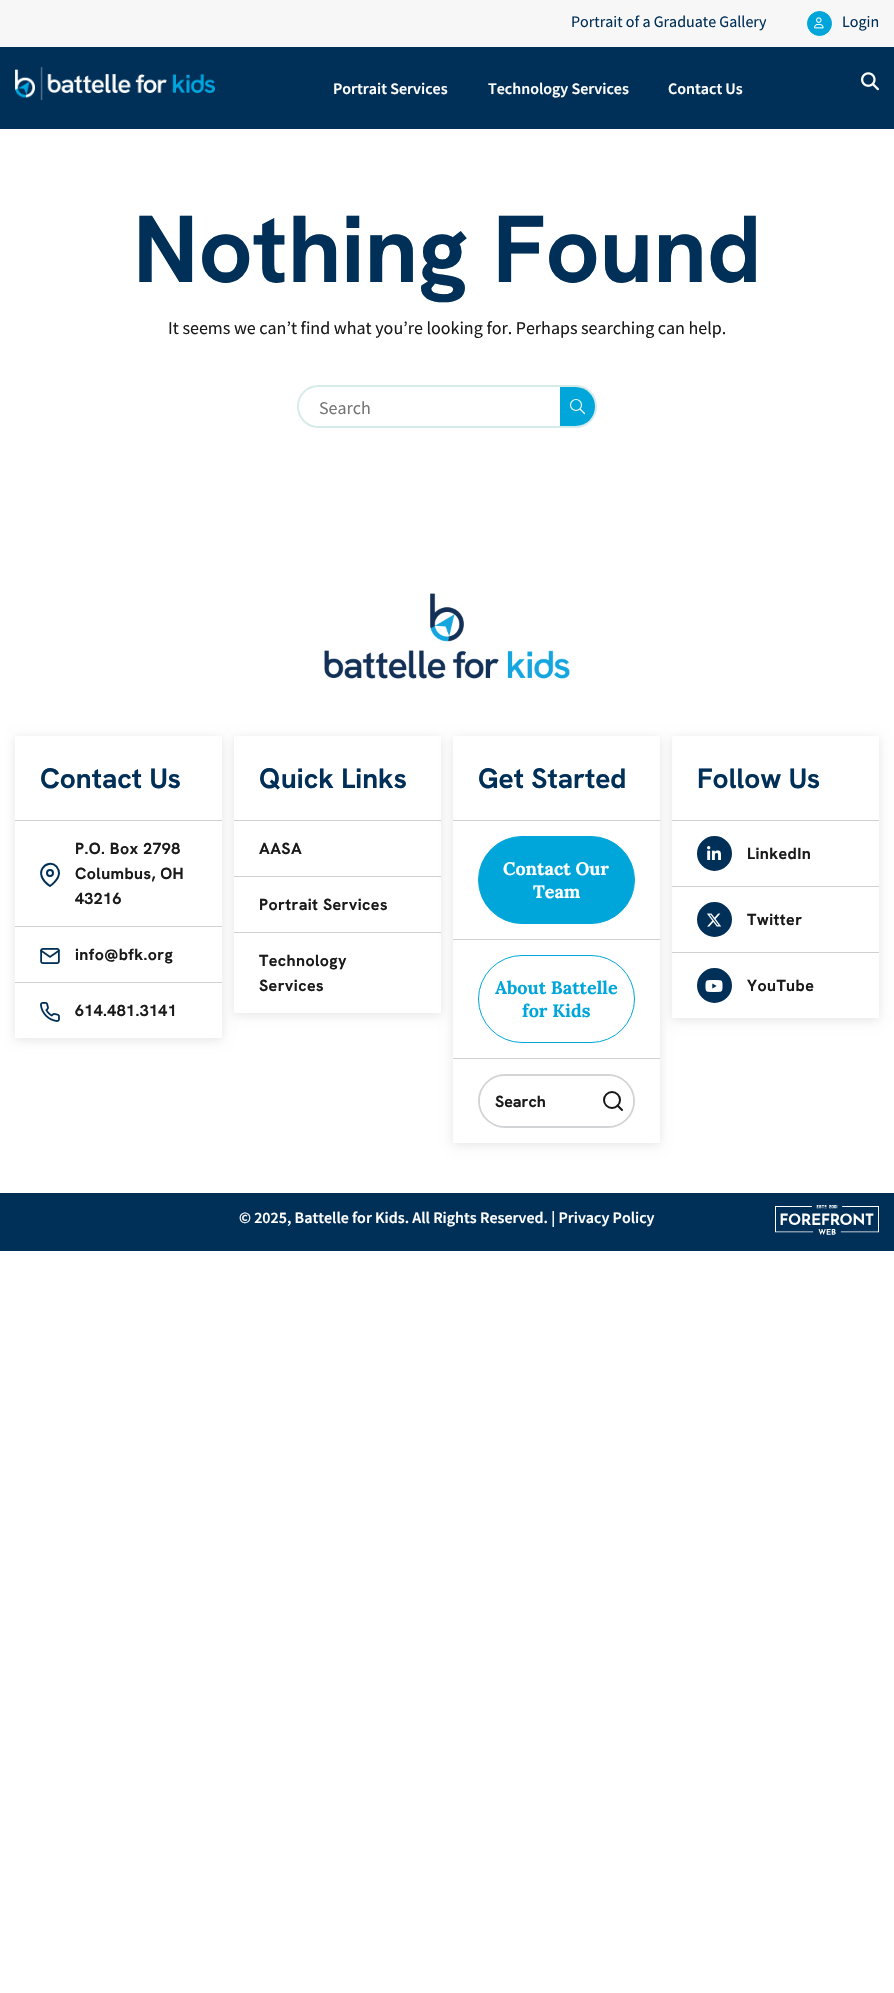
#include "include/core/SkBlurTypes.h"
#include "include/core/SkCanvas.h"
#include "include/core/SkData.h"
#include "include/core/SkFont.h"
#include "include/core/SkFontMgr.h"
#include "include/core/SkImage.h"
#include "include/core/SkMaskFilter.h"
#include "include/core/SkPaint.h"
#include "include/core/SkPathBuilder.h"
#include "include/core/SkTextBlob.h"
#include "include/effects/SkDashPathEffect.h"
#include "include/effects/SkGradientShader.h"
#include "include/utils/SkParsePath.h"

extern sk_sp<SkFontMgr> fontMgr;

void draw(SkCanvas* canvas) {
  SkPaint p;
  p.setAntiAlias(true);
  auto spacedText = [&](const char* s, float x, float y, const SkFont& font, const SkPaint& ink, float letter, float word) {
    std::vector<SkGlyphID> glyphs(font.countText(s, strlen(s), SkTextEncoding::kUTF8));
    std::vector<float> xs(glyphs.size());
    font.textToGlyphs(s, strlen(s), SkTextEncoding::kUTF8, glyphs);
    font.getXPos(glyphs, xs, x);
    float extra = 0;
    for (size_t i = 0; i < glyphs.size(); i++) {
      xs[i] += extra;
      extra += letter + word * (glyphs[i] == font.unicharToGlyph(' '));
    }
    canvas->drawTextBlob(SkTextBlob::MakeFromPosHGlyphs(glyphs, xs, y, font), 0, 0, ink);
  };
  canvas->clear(SK_ColorWHITE);
  p.setColor(SkColorSetRGB(247, 247, 247));
  canvas->drawRect(SkRect::MakeLTRB(0, 0, 894, 47), p);
  p.setColor(SkColorSetRGB(0, 166, 218));
  canvas->drawCircle(819.5f, 23.5f, 12, p);
  p.setStyle(SkPaint::kStroke_Style);
  p.setStrokeWidth(1);
  canvas->drawCircle(819.5f, 23.5f, 12, p);
  canvas->drawImageRect(SkImages::DeferredFromEncodedData(SkData::MakeFromFileName("images/1.png")), SkRect::MakeLTRB(814, 17, 824, 29), SkSamplingOptions());
  p.setStyle(SkPaint::kFill_Style);
  p.setColor(SkColorSetRGB(0, 47, 87));
  canvas->drawRect(SkRect::MakeLTRB(0, 47, 894, 129), p);
  canvas->drawImageRect(SkImages::DeferredFromEncodedData(SkData::MakeFromFileName("images/2.png")), SkRect::MakeLTRB(15, 67, 215, 100), SkSamplingOptions());
  canvas->drawImageRect(SkImages::DeferredFromEncodedData(SkData::MakeFromFileName("images/3.png")), SkRect::MakeLTRB(861, 72, 879, 91), SkSamplingOptions());
  p.setStyle(SkPaint::kStroke_Style);
  p.setStrokeWidth(2);
  p.setColor(SkColorSetRGB(214, 234, 234));
  canvas->drawRoundRect(SkRect::MakeLTRB(298, 386, 596, 427), 20.5f, 20.5f, p);
  canvas->save();
  canvas->clipPath(SkPathBuilder().moveTo(318.5f, 387).lineTo(575.5f, 387).cubicTo(586.5f, 387, 595, 395.5f, 595, 406.5f).cubicTo(595, 417.5f, 586.5f, 426, 575.5f, 426).lineTo(318.5f, 426).cubicTo(307.5f, 426, 299, 417.5f, 299, 406.5f).cubicTo(299, 395.5f, 307.5f, 387, 318.5f, 387).close().detach(), true);
  p.setStyle(SkPaint::kFill_Style);
  p.setColor(SK_ColorWHITE);
  canvas->drawPath(SkPathBuilder().moveTo(299, 389).lineTo(556, 389).lineTo(556, 426).lineTo(318.5f, 426).cubicTo(307.5f, 426, 299, 417.5f, 299, 406.5f).close().detach(), p);
  canvas->restore();
  p.setColor(SkColorSetRGB(0, 166, 218));
  canvas->drawPath(SkPathBuilder().moveTo(560, 387).lineTo(575.5f, 387).cubicTo(586.5f, 387, 595, 395.5f, 595, 406.5f).cubicTo(595, 417.5f, 586.5f, 426, 575.5f, 426).lineTo(560, 426).close().detach(), p);
  p.setStyle(SkPaint::kStroke_Style);
  p.setStrokeWidth(1.2f);
  p.setColor(SK_ColorWHITE);
  canvas->drawCircle(576, 405, 5.5f, p);
  p.setStrokeCap(SkPaint::kRound_Cap);
  canvas->drawPath(SkPathBuilder().moveTo(580.5f, 409.5f).lineTo(584.5f, 413.5f).detach(), p);
  canvas->drawImageRect(SkImages::DeferredFromEncodedData(SkData::MakeFromFileName("images/4.png")), SkRect::MakeLTRB(324, 593, 570, 679), SkSamplingOptions());
  canvas->save();
  canvas->clipPath(SkPathBuilder(SkPathFillType::kEvenOdd).moveTo(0, 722).lineTo(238, 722).lineTo(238, 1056).lineTo(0, 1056).close().moveTo(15, 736).lineTo(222, 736).lineTo(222, 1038).lineTo(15, 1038).close().detach(), true);
  p.setStyle(SkPaint::kFill_Style);
  p.setColor(SkColorSetARGB(26, 0, 0, 0));
  p.setMaskFilter(SkMaskFilter::MakeBlur(kNormal_SkBlurStyle, 5));
  canvas->drawRect(SkRect::MakeLTRB(15, 738, 222, 1040), p);
  p.setMaskFilter(nullptr);
  canvas->restore();
  p.setColor(SkColorSetRGB(208, 208, 208));
  canvas->drawRect(SkRect::MakeLTRB(15, 820, 222, 821), p);
  canvas->drawRect(SkRect::MakeLTRB(15, 926, 222, 927), p);
  p.setStyle(SkPaint::kStroke_Style);
  p.setStrokeWidth(2);
  p.setStrokeJoin(SkPaint::kRound_Join);
  p.setColor(SkColorSetRGB(0, 47, 87));
  canvas->drawPath(SkPathBuilder().moveTo(59, 873).cubicTo(59, 880, 50, 886, 50, 886).cubicTo(31, 873.5f, 47, 857.5f, 56.5f, 866.5f).cubicTo(58, 868.5f, 59, 870.5f, 59, 873).close().detach(), p);
  p.setStrokeCap(SkPaint::kButt_Cap);
  p.setStrokeJoin(SkPaint::kMiter_Join);
  canvas->drawCircle(50, 873, 3, p);
  p.setStyle(SkPaint::kFill_Style);
  p.setColor(SkColorSetRGB(208, 208, 208));
  canvas->drawRect(SkRect::MakeLTRB(15, 982, 222, 983), p);
  canvas->drawImageRect(SkImages::DeferredFromEncodedData(SkData::MakeFromFileName("images/5.png")), SkRect::MakeLTRB(40, 948, 60, 964), SkSamplingOptions());
  canvas->drawImageRect(SkImages::DeferredFromEncodedData(SkData::MakeFromFileName("images/6.png")), SkRect::MakeLTRB(40, 1002, 60, 1022), SkSamplingOptions());
  canvas->save();
  canvas->clipPath(SkPathBuilder(SkPathFillType::kEvenOdd).moveTo(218, 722).lineTo(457, 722).lineTo(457, 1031).lineTo(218, 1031).close().moveTo(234, 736).lineTo(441, 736).lineTo(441, 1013).lineTo(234, 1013).close().detach(), true);
  p.setColor(SkColorSetARGB(26, 0, 0, 0));
  p.setMaskFilter(SkMaskFilter::MakeBlur(kNormal_SkBlurStyle, 5));
  canvas->drawRect(SkRect::MakeLTRB(234, 738, 441, 1015), p);
  p.setMaskFilter(nullptr);
  canvas->restore();
  p.setColor(SkColorSetRGB(208, 208, 208));
  canvas->drawRect(SkRect::MakeLTRB(234, 820, 441, 821), p);
  canvas->drawRect(SkRect::MakeLTRB(234, 876, 441, 877), p);
  canvas->drawRect(SkRect::MakeLTRB(234, 932, 441, 933), p);
  canvas->save();
  canvas->clipPath(SkPathBuilder(SkPathFillType::kEvenOdd).moveTo(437, 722).lineTo(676, 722).lineTo(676, 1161).lineTo(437, 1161).close().moveTo(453, 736).lineTo(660, 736).lineTo(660, 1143).lineTo(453, 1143).close().detach(), true);
  p.setColor(SkColorSetARGB(26, 0, 0, 0));
  p.setMaskFilter(SkMaskFilter::MakeBlur(kNormal_SkBlurStyle, 5));
  canvas->drawRect(SkRect::MakeLTRB(453, 738, 660, 1145), p);
  p.setMaskFilter(nullptr);
  canvas->restore();
  p.setColor(SkColorSetRGB(208, 208, 208));
  canvas->drawRect(SkRect::MakeLTRB(453, 820, 660, 821), p);
  canvas->drawRect(SkRect::MakeLTRB(453, 939, 660, 940), p);
  p.setColor(SkColorSetRGB(0, 166, 218));
  canvas->drawRoundRect(SkRect::MakeLTRB(478.5f, 836.5f, 634.5f, 923.5f), 43.5f, 43.5f, p);
  p.setStyle(SkPaint::kStroke_Style);
  p.setStrokeWidth(1);
  canvas->drawRoundRect(SkRect::MakeLTRB(478.5f, 836.5f, 634.5f, 923.5f), 43.5f, 43.5f, p);
  p.setStyle(SkPaint::kFill_Style);
  p.setColor(SkColorSetRGB(208, 208, 208));
  canvas->drawRect(SkRect::MakeLTRB(453, 1058, 660, 1059), p);
  p.setStyle(SkPaint::kStroke_Style);
  p.setColor(SkColorSetRGB(0, 166, 218));
  canvas->drawRoundRect(SkRect::MakeLTRB(478.5f, 955.5f, 634.5f, 1042.5f), 43.5f, 43.5f, p);
  p.setStrokeWidth(2);
  p.setColor(SkColorSetRGB(210, 212, 213));
  canvas->drawRoundRect(SkRect::MakeLTRB(479, 1075, 634, 1127), 26, 26, p);
  p.setStyle(SkPaint::kFill_Style);
  p.setColor(SK_ColorWHITE);
  canvas->drawPath(SkPathBuilder().moveTo(505, 1076).lineTo(592, 1076).lineTo(592, 1126).lineTo(505, 1126).cubicTo(491, 1126, 480, 1115, 480, 1101).cubicTo(480, 1087, 491, 1076, 505, 1076).close().detach(), p);
  canvas->drawPath(SkPathBuilder().moveTo(592, 1076).lineTo(608, 1076).cubicTo(622, 1076, 633, 1087, 633, 1101).cubicTo(633, 1115, 622, 1126, 608, 1126).lineTo(592, 1126).close().detach(), p);
  p.setStyle(SkPaint::kStroke_Style);
  p.setColor(SkColorSetRGB(22, 22, 22));
  canvas->drawCircle(612, 1100, 8, p);
  p.setStrokeCap(SkPaint::kRound_Cap);
  p.setStrokeJoin(SkPaint::kRound_Join);
  canvas->drawPath(SkPathBuilder().moveTo(622, 1110).lineTo(617.5f, 1105.5f).detach(), p);
  canvas->save();
  canvas->clipPath(SkPathBuilder(SkPathFillType::kEvenOdd).moveTo(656, 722).lineTo(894, 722).lineTo(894, 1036).lineTo(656, 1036).close().moveTo(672, 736).lineTo(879, 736).lineTo(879, 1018).lineTo(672, 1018).close().detach(), true);
  p.setStyle(SkPaint::kFill_Style);
  p.setColor(SkColorSetARGB(26, 0, 0, 0));
  p.setMaskFilter(SkMaskFilter::MakeBlur(kNormal_SkBlurStyle, 5));
  canvas->drawRect(SkRect::MakeLTRB(672, 738, 879, 1020), p);
  p.setMaskFilter(nullptr);
  canvas->restore();
  p.setColor(SkColorSetRGB(208, 208, 208));
  canvas->drawRect(SkRect::MakeLTRB(672, 820, 879, 821), p);
  canvas->drawRect(SkRect::MakeLTRB(672, 886, 879, 887), p);
  p.setColor(SkColorSetRGB(0, 47, 87));
  canvas->drawCircle(714.5f, 853.5f, 16.5f, p);
  p.setStyle(SkPaint::kStroke_Style);
  p.setStrokeCap(SkPaint::kButt_Cap);
  p.setStrokeJoin(SkPaint::kMiter_Join);
  canvas->drawCircle(714.5f, 853.5f, 16.5f, p);
  canvas->drawImageRect(SkImages::DeferredFromEncodedData(SkData::MakeFromFileName("images/7.png")), SkRect::MakeLTRB(707, 846, 721, 860), SkSamplingOptions());
  p.setStyle(SkPaint::kFill_Style);
  p.setColor(SkColorSetRGB(208, 208, 208));
  canvas->drawRect(SkRect::MakeLTRB(672, 952, 879, 953), p);
  p.setColor(SkColorSetRGB(0, 47, 87));
  canvas->drawCircle(714.5f, 919.5f, 16.5f, p);
  p.setStyle(SkPaint::kStroke_Style);
  canvas->drawCircle(714.5f, 919.5f, 16.5f, p);
  canvas->drawImageRect(SkImages::DeferredFromEncodedData(SkData::MakeFromFileName("images/8.png")), SkRect::MakeLTRB(707, 913, 722, 927), SkSamplingOptions());
  p.setStyle(SkPaint::kFill_Style);
  canvas->drawCircle(714.5f, 985.5f, 16.5f, p);
  p.setStyle(SkPaint::kStroke_Style);
  canvas->drawCircle(714.5f, 985.5f, 16.5f, p);
  canvas->drawImageRect(SkImages::DeferredFromEncodedData(SkData::MakeFromFileName("images/9.png")), SkRect::MakeLTRB(705, 980, 723, 992), SkSamplingOptions());
  p.setStyle(SkPaint::kFill_Style);
  canvas->drawRect(SkRect::MakeLTRB(0, 1193, 894, 1251), p);
  canvas->drawImageRect(SkImages::DeferredFromEncodedData(SkData::MakeFromFileName("images/10.png")), SkRect::MakeLTRB(775, 1205, 879, 1235), SkSamplingOptions());
  SkFont font1(fontMgr->matchFamilyStyle("Source Sans Pro", SkFontStyle::Normal()), 16);
  font1.setSubpixel(true);
  canvas->drawString("Portrait of a Graduate Gallery", 571, 27, font1, p);
  canvas->drawString("Login", 842, 27, font1, p);
  SkFont font2(fontMgr->matchFamilyStyle("Source Sans Pro", SkFontStyle(600, SkFontStyle::kNormal_Width, SkFontStyle::kUpright_Slant)), 16);
  font2.setSubpixel(true);
  p.setColor(SK_ColorWHITE);
  canvas->drawString("Portrait Services", 333, 94, font2, p);
  canvas->drawString("Technology Services", 488, 94, font2, p);
  canvas->drawString("Contact Us", 668, 94, font2, p);
  SkFont font3(fontMgr->matchFamilyStyle("Hanken Grotesk", SkFontStyle::Bold()), 95);
  font3.setSubpixel(true);
  p.setColor(SkColorSetRGB(0, 47, 87));
  canvas->drawString("Nothing Found", 133, 282, font3, p);
  SkFont font4(fontMgr->matchFamilyStyle("Source Sans Pro", SkFontStyle::Normal()), 18);
  font4.setSubpixel(true);
  p.setColor(SkColorSetRGB(26, 26, 26));
  canvas->drawString("It seems we can’t find what you’re looking for. Perhaps searching can help.", 168, 334, font4, p);
  p.setColor(SkColorSetRGB(117, 117, 117));
  canvas->drawString("Search", 319, 414, font4, p);
  SkFont font5(fontMgr->matchFamilyStyle("Hanken Grotesk", SkFontStyle::Bold()), 28);
  font5.setSubpixel(true);
  p.setColor(SkColorSetRGB(0, 47, 87));
  canvas->drawString("Contact Us", 40, 788, font5, p);
  SkFont font6(fontMgr->matchFamilyStyle("Hanken Grotesk", SkFontStyle::Bold()), 16);
  font6.setSubpixel(true);
  p.setColor(SkColorSetRGB(26, 26, 26));
  spacedText("P.O. Box 2798", 75, 854, font6, p, 0.4f, 0);
  spacedText("Columbus, OH", 75, 879, font6, p, 0.4f, 0);
  spacedText("43216", 75, 904, font6, p, 0.4f, 0);
  spacedText("info@bfk.org", 75, 960, font6, p, 0.4f, 0);
  spacedText("614.481.3141", 75, 1016, font6, p, 0.4f, 0);
  p.setColor(SkColorSetRGB(0, 47, 87));
  canvas->drawString("Quick Links", 259, 788, font5, p);
  p.setColor(SkColorSetRGB(26, 26, 26));
  spacedText("AASA", 259, 854, font6, p, 0.4f, 0);
  spacedText("Portrait Services", 259, 910, font6, p, 0.4f, 0);
  spacedText("Technology", 259, 966, font6, p, 0.4f, 0);
  spacedText("Services", 259, 991, font6, p, 0.4f, 0);
  p.setColor(SkColorSetRGB(0, 47, 87));
  canvas->drawString("Get Started", 478, 788, font5, p);
  SkFont font7(fontMgr->matchFamilyStyle("Lora", SkFontStyle::Bold()), 18);
  font7.setSubpixel(true);
  p.setColor(SK_ColorWHITE);
  canvas->drawString("Contact Our", 503, 875, font7, p);
  canvas->drawString("Team", 533, 898, font7, p);
  p.setColor(SkColorSetRGB(0, 166, 218));
  canvas->drawString("About Battelle", 495, 994, font7, p);
  canvas->drawString("for Kids", 522, 1017, font7, p);
  p.setColor(SkColorSetRGB(26, 26, 26));
  canvas->drawString("Search", 495, 1107, font6, p);
  p.setColor(SkColorSetRGB(0, 47, 87));
  canvas->drawString("Follow Us", 697, 788, font5, p);
  p.setColor(SkColorSetRGB(26, 26, 26));
  spacedText("LinkedIn", 747, 859, font6, p, 0.4f, 0);
  spacedText("Twitter", 747, 925, font6, p, 0.4f, 0);
  spacedText("YouTube", 747, 991, font6, p, 0.4f, 0);
  p.setColor(SK_ColorWHITE);
  canvas->drawString("© 2025, Battelle for Kids. All Rights Reserved. | Privacy Policy", 239, 1223, font2, p);
}
